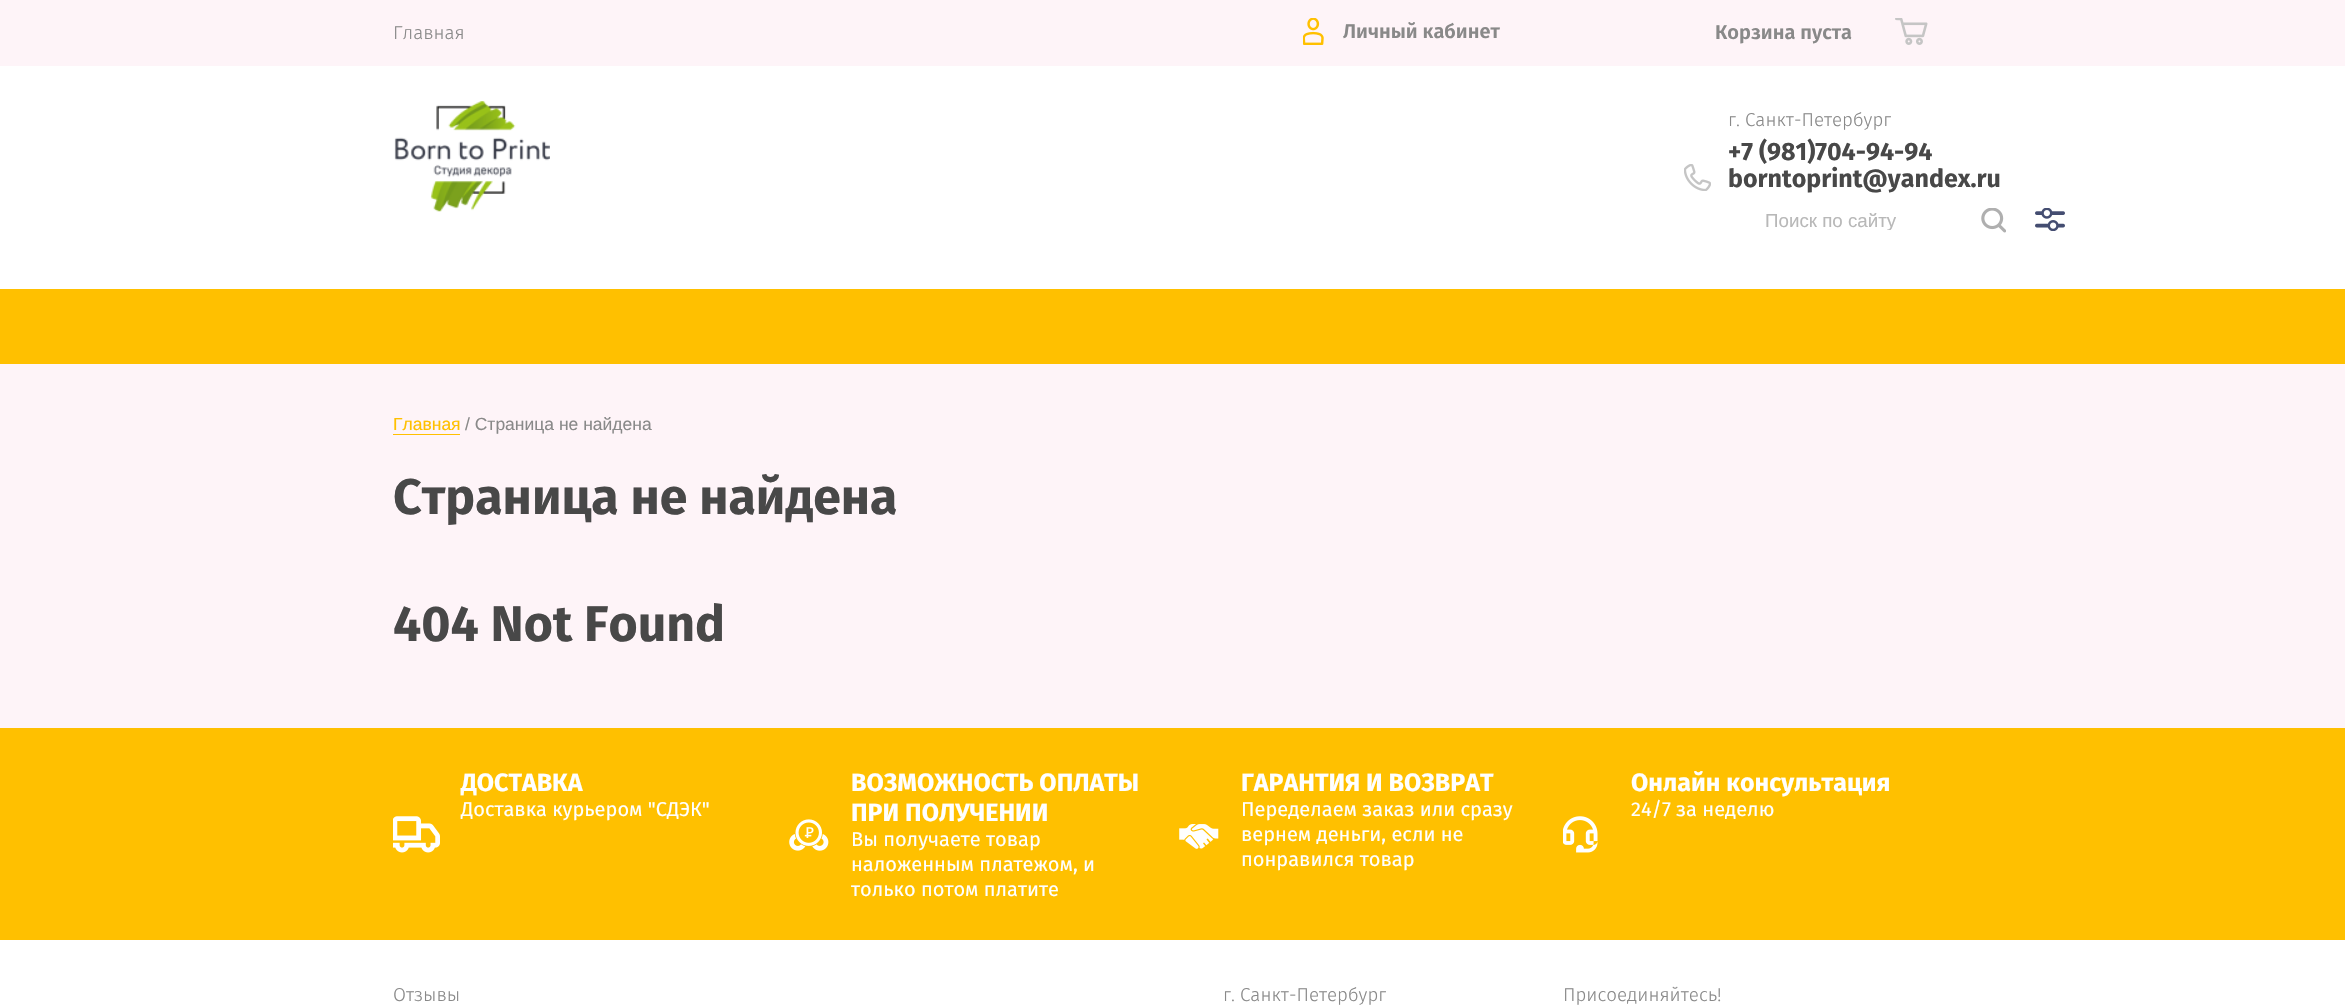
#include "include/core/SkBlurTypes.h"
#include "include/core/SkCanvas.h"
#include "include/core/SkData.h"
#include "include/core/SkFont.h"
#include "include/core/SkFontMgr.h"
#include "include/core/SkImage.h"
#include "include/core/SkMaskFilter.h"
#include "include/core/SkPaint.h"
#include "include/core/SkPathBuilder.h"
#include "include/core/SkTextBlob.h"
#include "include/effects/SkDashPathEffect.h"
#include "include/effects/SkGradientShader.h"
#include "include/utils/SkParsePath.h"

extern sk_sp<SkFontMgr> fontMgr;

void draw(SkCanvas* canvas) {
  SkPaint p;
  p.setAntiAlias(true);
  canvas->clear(SK_ColorWHITE);
  p.setColor(SkColorSetRGB(254, 244, 248));
  canvas->drawRect(SkRect::MakeLTRB(0, 0, 2345, 66), p);
  canvas->drawImageRect(SkImages::DeferredFromEncodedData(SkData::MakeFromFileName("images/1.png")), SkRect::MakeLTRB(1303, 18, 1324, 45), SkSamplingOptions());
  canvas->drawImageRect(SkImages::DeferredFromEncodedData(SkData::MakeFromFileName("images/2.png")), SkRect::MakeLTRB(1895, 18, 1928, 45), SkSamplingOptions());
  canvas->drawImageRect(SkImages::DeferredFromEncodedData(SkData::MakeFromFileName("images/3.png")), SkRect::MakeLTRB(394, 101, 550, 212), SkSamplingOptions());
  canvas->drawImageRect(SkImages::DeferredFromEncodedData(SkData::MakeFromFileName("images/4.png")), SkRect::MakeLTRB(1684, 164, 1711, 191), SkSamplingOptions());
  canvas->drawImageRect(SkImages::DeferredFromEncodedData(SkData::MakeFromFileName("images/5.png")), SkRect::MakeLTRB(1981, 208, 2006, 233), SkSamplingOptions());
  canvas->drawImageRect(SkImages::DeferredFromEncodedData(SkData::MakeFromFileName("images/6.png")), SkRect::MakeLTRB(2035, 208, 2065, 231), SkSamplingOptions());
  canvas->drawRect(SkRect::MakeLTRB(0, 364, 2345, 728), p);
  p.setColor(SkColorSetRGB(255, 192, 0));
  canvas->drawRect(SkRect::MakeLTRB(0, 289, 2345, 364), p);
  canvas->drawRect(SkRect::MakeLTRB(393, 434, 460, 435), p);
  canvas->drawRect(SkRect::MakeLTRB(0, 728, 2345, 940), p);
  canvas->drawImageRect(SkImages::DeferredFromEncodedData(SkData::MakeFromFileName("images/7.png")), SkRect::MakeLTRB(393, 816, 440, 853), SkSamplingOptions());
  canvas->drawImageRect(SkImages::DeferredFromEncodedData(SkData::MakeFromFileName("images/8.png")), SkRect::MakeLTRB(789, 819, 829, 851), SkSamplingOptions());
  canvas->drawImageRect(SkImages::DeferredFromEncodedData(SkData::MakeFromFileName("images/9.png")), SkRect::MakeLTRB(1179, 824, 1219, 849), SkSamplingOptions());
  canvas->drawImageRect(SkImages::DeferredFromEncodedData(SkData::MakeFromFileName("images/10.png")), SkRect::MakeLTRB(1563, 816, 1598, 853), SkSamplingOptions());
  SkFont font1(fontMgr->matchFamilyStyle("Fira Sans", SkFontStyle(300, SkFontStyle::kNormal_Width, SkFontStyle::kUpright_Slant)), 18.75f);
  font1.setSubpixel(true);
  p.setColor(SkColorSetRGB(137, 137, 137));
  canvas->drawString("Главная", 393, 39, font1, p);
  SkFont font2(fontMgr->matchFamilyStyle("Fira Sans", SkFontStyle(600, SkFontStyle::kNormal_Width, SkFontStyle::kUpright_Slant)), 20);
  font2.setSubpixel(true);
  canvas->drawString("Личный кабинет", 1343, 38, font2, p);
  canvas->drawString("Корзина пуста", 1715, 39, font2, p);
  canvas->drawString("г. Санкт-Петербург", 1728, 126, font1, p);
  SkFont font3(fontMgr->matchFamilyStyle("Fira Sans", SkFontStyle::Bold()), 25);
  font3.setSubpixel(true);
  p.setColor(SkColorSetRGB(72, 72, 72));
  canvas->drawString("+7 (981)704-94-94", 1728, 160, font3, p);
  canvas->drawString("borntoprint@yandex.ru", 1728, 187, font3, p);
  canvas->save();
  canvas->clipRect(SkRect::MakeLTRB(1765, 209, 1971, 230));
  SkFont font4(fontMgr->matchFamilyStyle("Liberation Sans", SkFontStyle::Normal()), 18.75f);
  font4.setSubpixel(true);
  p.setColor(SkColorSetRGB(184, 184, 184));
  canvas->drawString("Поиск по сайту", 1765, 227, font4, p);
  canvas->restore();
  SkFont font5(fontMgr->matchFamilyStyle("Liberation Sans", SkFontStyle::Normal()), 17.5f);
  font5.setSubpixel(true);
  p.setColor(SkColorSetRGB(255, 192, 0));
  canvas->drawString("Главная", 393, 430, font5, p);
  p.setColor(SkColorSetRGB(137, 137, 137));
  canvas->drawString("/ Страница не найдена", 465, 430, font5, p);
  SkFont font6(fontMgr->matchFamilyStyle("Fira Sans", SkFontStyle::Bold()), 50);
  font6.setSubpixel(true);
  p.setColor(SkColorSetRGB(72, 72, 72));
  canvas->drawString("Страница не найдена", 393, 514, font6, p);
  canvas->drawString("404 Not Found", 393, 641, font6, p);
  p.setColor(SK_ColorWHITE);
  canvas->drawString("ДОСТАВКА", 461, 791, font3, p);
  SkFont font7(fontMgr->matchFamilyStyle("Fira Sans", SkFontStyle::Normal()), 20);
  font7.setSubpixel(true);
  canvas->drawString("Доставка курьером \"СДЭК\"", 461, 816, font7, p);
  canvas->drawString("ВОЗМОЖНОСТЬ ОПЛАТЫ", 851, 791, font3, p);
  canvas->drawString("ПРИ ПОЛУЧЕНИИ", 851, 821, font3, p);
  canvas->drawString("Вы получаете товар", 851, 846, font7, p);
  canvas->drawString("наложенным платежом, и", 851, 871, font7, p);
  canvas->drawString("только потом платите", 851, 896, font7, p);
  canvas->drawString("ГАРАНТИЯ И ВОЗВРАТ", 1241, 791, font3, p);
  canvas->drawString("Переделаем заказ или сразу", 1241, 816, font7, p);
  canvas->drawString("вернем деньги, если не", 1241, 841, font7, p);
  canvas->drawString("понравился товар", 1241, 866, font7, p);
  canvas->drawString("Онлайн консультация", 1631, 791, font3, p);
  canvas->drawString("24/7 за неделю", 1631, 816, font7, p);
  p.setColor(SkColorSetRGB(137, 137, 137));
  canvas->drawString("Отзывы", 393, 1001, font1, p);
  canvas->drawString("г. Санкт-Петербург", 1223, 1001, font1, p);
  canvas->drawString("Присоединяйтесь!", 1563, 1001, font1, p);
}
